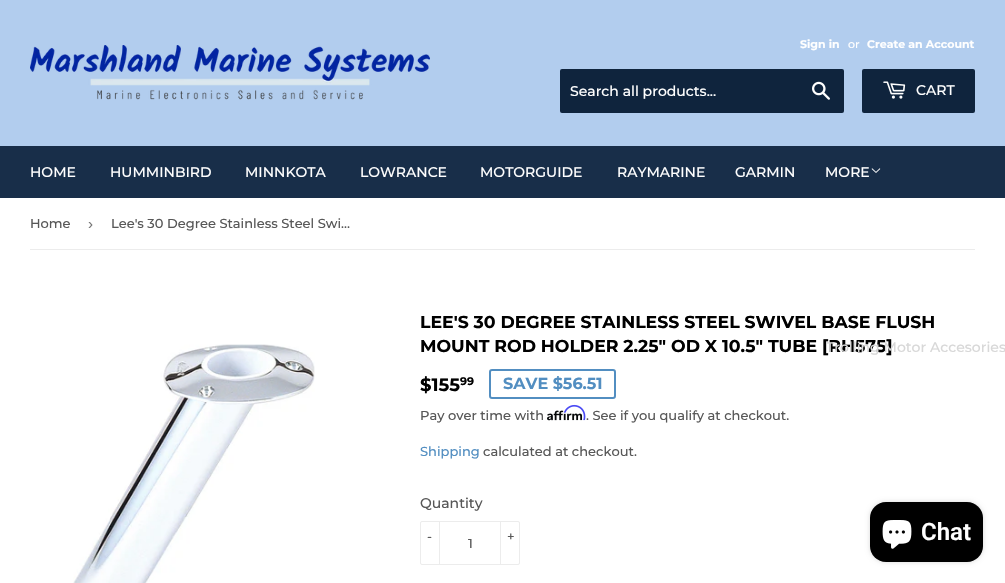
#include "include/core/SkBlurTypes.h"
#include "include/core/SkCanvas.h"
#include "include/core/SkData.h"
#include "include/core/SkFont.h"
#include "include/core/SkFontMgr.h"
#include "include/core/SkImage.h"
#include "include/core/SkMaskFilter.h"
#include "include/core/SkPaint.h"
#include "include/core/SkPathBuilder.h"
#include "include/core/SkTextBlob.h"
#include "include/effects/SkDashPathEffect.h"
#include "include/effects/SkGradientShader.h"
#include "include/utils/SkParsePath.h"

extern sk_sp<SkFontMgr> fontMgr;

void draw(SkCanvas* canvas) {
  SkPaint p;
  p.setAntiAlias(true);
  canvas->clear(SK_ColorWHITE);
  p.setColor(SkColorSetRGB(178, 205, 238));
  canvas->drawRect(SkRect::MakeLTRB(0, 0, 1005, 146), p);
  canvas->drawImageRect(SkImages::DeferredFromEncodedData(SkData::MakeFromFileName("images/1.png")), SkRect::MakeLTRB(30, 45, 430, 100), SkSamplingOptions());
  p.setColor(SkColorSetRGB(15, 36, 61));
  canvas->drawRoundRect(SkRect::MakeLTRB(560, 69, 844, 113), 2, 2, p);
  canvas->drawImageRect(SkImages::DeferredFromEncodedData(SkData::MakeFromFileName("images/2.png")), SkRect::MakeLTRB(812, 81, 830, 100), SkSamplingOptions());
  canvas->drawRoundRect(SkRect::MakeLTRB(862, 69, 975, 113), 2, 2, p);
  canvas->drawImageRect(SkImages::DeferredFromEncodedData(SkData::MakeFromFileName("images/3.png")), SkRect::MakeLTRB(883, 81, 906, 99), SkSamplingOptions());
  p.setColor(SkColorSetRGB(24, 46, 73));
  canvas->drawRect(SkRect::MakeLTRB(0, 146, 1005, 198), p);
  canvas->drawImageRect(SkImages::DeferredFromEncodedData(SkData::MakeFromFileName("images/4.png")), SkRect::MakeLTRB(871, 168, 881, 173), SkSamplingOptions());
  p.setColor(SkColorSetRGB(236, 236, 236));
  canvas->drawRect(SkRect::MakeLTRB(30, 249, 975, 250), p);
  canvas->drawImageRect(SkImages::DeferredFromEncodedData(SkData::MakeFromFileName("images/5.png")), SkRect::MakeLTRB(73, 344, 315, 583), SkSamplingOptions());
  p.setStyle(SkPaint::kStroke_Style);
  p.setStrokeWidth(2);
  p.setColor(SkColorSetRGB(82, 142, 193));
  canvas->drawRoundRect(SkRect::MakeLTRB(490, 370, 615, 398), 2, 2, p);
  canvas->drawImageRect(SkImages::DeferredFromEncodedData(SkData::MakeFromFileName("images/7.png")), SkRect::MakeLTRB(547, 410, 583, 421), SkSamplingOptions());
  canvas->drawImageRect(SkImages::DeferredFromEncodedData(SkData::MakeFromFileName("images/6.png")), SkRect::MakeLTRB(563, 404, 586, 421), SkSamplingOptions());
  p.setStrokeWidth(1);
  p.setColor(SkColorSetRGB(236, 236, 236));
  canvas->drawRoundRect(SkRect::MakeLTRB(420.5f, 521.5f, 519.5f, 564.5f), 1.5f, 1.5f, p);
  p.setStyle(SkPaint::kFill_Style);
  canvas->drawRect(SkRect::MakeLTRB(439, 521, 440, 565), p);
  canvas->drawRect(SkRect::MakeLTRB(500, 521, 501, 565), p);
  p.setColor(SkColorSetARGB(38, 0, 0, 0));
  p.setMaskFilter(SkMaskFilter::MakeBlur(kNormal_SkBlurStyle, 2.5f));
  canvas->drawRoundRect(SkRect::MakeLTRB(870, 502, 983, 562), 16, 16, p);
  p.setMaskFilter(nullptr);
  p.setColor(SK_ColorBLACK);
  canvas->drawRoundRect(SkRect::MakeLTRB(870, 502, 983, 562), 16, 16, p);
  canvas->drawImageRect(SkImages::DeferredFromEncodedData(SkData::MakeFromFileName("images/8.png")), SkRect::MakeLTRB(882, 520, 912, 549), SkSamplingOptions());
  SkFont font1(fontMgr->matchFamilyStyle("Montserrat", SkFontStyle::Bold()), 11);
  font1.setSubpixel(true);
  p.setColor(SK_ColorWHITE);
  canvas->drawString("Sign in", 800, 48, font1, p);
  SkFont font2(fontMgr->matchFamilyStyle("Montserrat", SkFontStyle(500, SkFontStyle::kNormal_Width, SkFontStyle::kUpright_Slant)), 11);
  font2.setSubpixel(true);
  canvas->drawString("or", 848, 48, font2, p);
  canvas->drawString("Create an Account", 867, 48, font1, p);
  SkFont font3(fontMgr->matchFamilyStyle("Montserrat", SkFontStyle(500, SkFontStyle::kNormal_Width, SkFontStyle::kUpright_Slant)), 14);
  font3.setSubpixel(true);
  canvas->drawString("Search all products...", 570, 96, font3, p);
  canvas->drawString("CART", 916, 95, font3, p);
  canvas->drawString("HOME", 30, 177, font3, p);
  canvas->drawString("HUMMINBIRD", 110, 177, font3, p);
  canvas->drawString("MINNKOTA", 245, 177, font3, p);
  canvas->drawString("LOWRANCE", 360, 177, font3, p);
  canvas->drawString("MOTORGUIDE", 480, 177, font3, p);
  canvas->drawString("RAYMARINE", 617, 177, font3, p);
  canvas->drawString("GARMIN", 735, 177, font3, p);
  canvas->drawString("MORE", 825, 177, font3, p);
  SkFont font4(fontMgr->matchFamilyStyle("Montserrat", SkFontStyle(500, SkFontStyle::kNormal_Width, SkFontStyle::kUpright_Slant)), 13);
  font4.setSubpixel(true);
  p.setColor(SkColorSetRGB(88, 88, 88));
  canvas->drawString("Home", 30, 228, font4, p);
  SkFont font5(fontMgr->matchFamilyStyle("Liberation Sans", SkFontStyle::Normal()), 15);
  font5.setSubpixel(true);
  p.setColor(SkColorSetRGB(118, 118, 118));
  canvas->drawString("›", 88, 229, font5, p);
  p.setColor(SkColorSetRGB(88, 88, 88));
  canvas->drawString("Lee's 30 Degree Stainless Steel Swi…", 111, 228, font4, p);
  SkFont font6(fontMgr->matchFamilyStyle("Montserrat", SkFontStyle::Bold()), 17.3f);
  font6.setSubpixel(true);
  p.setColor(SK_ColorBLACK);
  canvas->drawString("LEE'S 30 DEGREE STAINLESS STEEL SWIVEL BASE FLUSH", 420, 328, font6, p);
  canvas->drawString("MOUNT ROD HOLDER 2.25\" OD X 10.5\" TUBE [RH575]", 420, 352, font6, p);
  p.setColor(SkColorSetRGB(216, 216, 216));
  canvas->drawString("Trolling Motor Accesories", 826, 352, font3, p);
  SkFont font7(fontMgr->matchFamilyStyle("Montserrat", SkFontStyle::Bold()), 18);
  font7.setSubpixel(true);
  p.setColor(SK_ColorBLACK);
  canvas->drawString("$155", 420, 391, font7, p);
  canvas->drawString("99", 460, 385, font1, p);
  SkFont font8(fontMgr->matchFamilyStyle("Montserrat", SkFontStyle::Bold()), 16);
  font8.setSubpixel(true);
  p.setColor(SkColorSetRGB(82, 142, 193));
  canvas->drawString("SAVE $56.51", 503, 389, font8, p);
  p.setColor(SkColorSetRGB(88, 88, 88));
  canvas->drawString("Pay over time with", 420, 420, font4, p);
  canvas->drawString(". See if you qualify at checkout.", 586, 420, font4, p);
  p.setColor(SkColorSetRGB(82, 142, 193));
  canvas->drawString("Shipping", 420, 456, font4, p);
  p.setColor(SkColorSetRGB(88, 88, 88));
  canvas->drawString("calculated at checkout.", 483, 456, font4, p);
  canvas->drawString("Quantity", 420, 508, font3, p);
  canvas->drawString("-", 427, 541, font4, p);
  canvas->drawString("+", 507, 541, font4, p);
  canvas->drawString("1", 468, 548, font4, p);
  SkFont font9(fontMgr->matchFamilyStyle("Roboto", SkFontStyle(600, SkFontStyle::kNormal_Width, SkFontStyle::kUpright_Slant)), 24);
  font9.setSubpixel(true);
  p.setColor(SK_ColorWHITE);
  canvas->drawString("Chat", 921, 540, font9, p);
}
